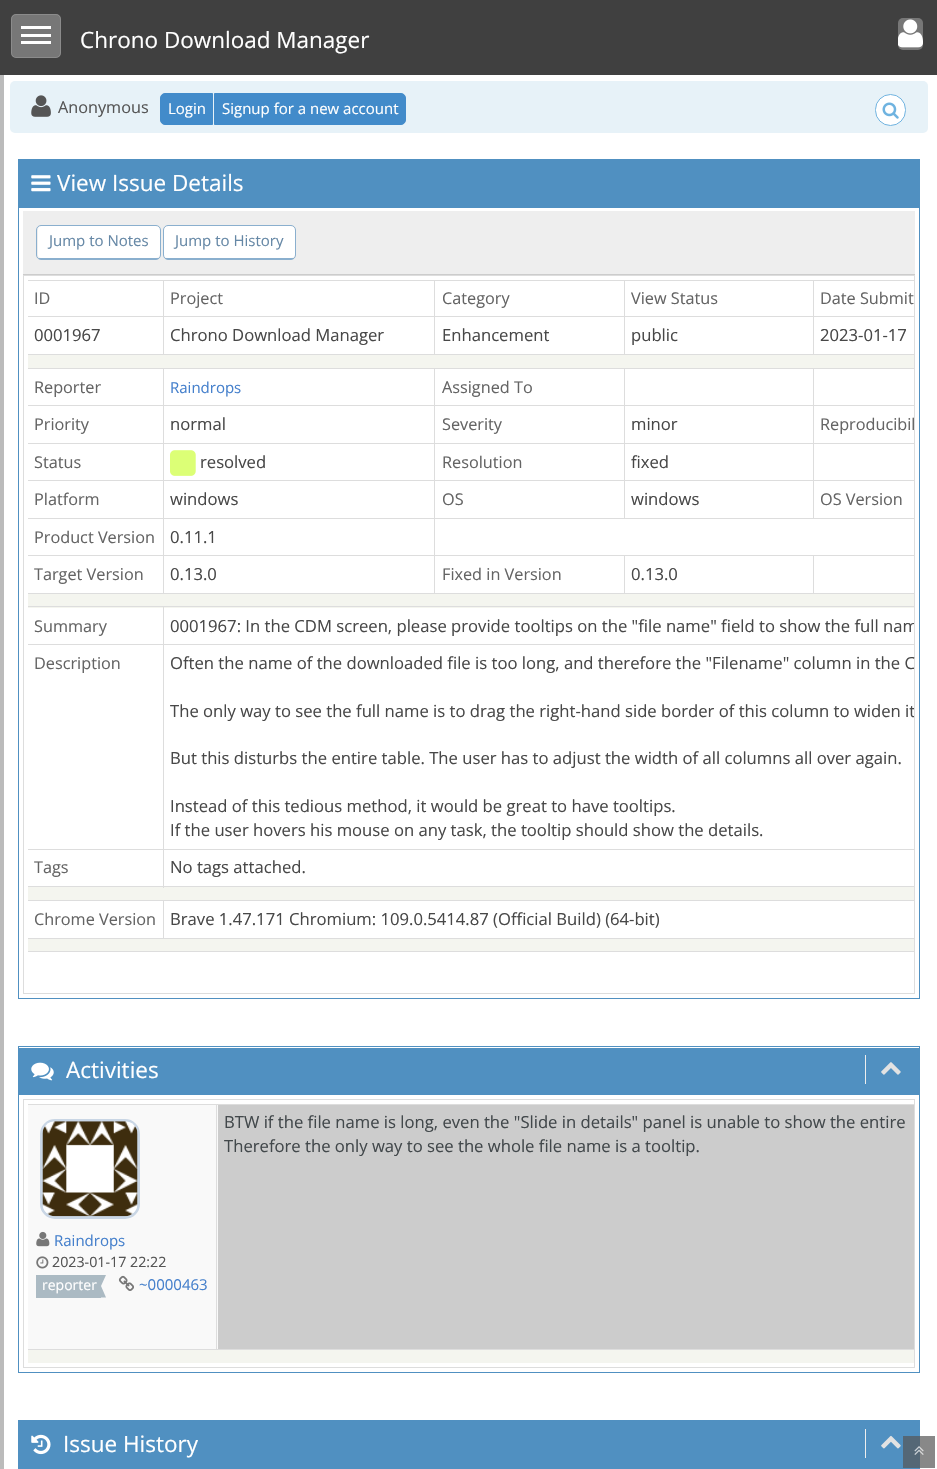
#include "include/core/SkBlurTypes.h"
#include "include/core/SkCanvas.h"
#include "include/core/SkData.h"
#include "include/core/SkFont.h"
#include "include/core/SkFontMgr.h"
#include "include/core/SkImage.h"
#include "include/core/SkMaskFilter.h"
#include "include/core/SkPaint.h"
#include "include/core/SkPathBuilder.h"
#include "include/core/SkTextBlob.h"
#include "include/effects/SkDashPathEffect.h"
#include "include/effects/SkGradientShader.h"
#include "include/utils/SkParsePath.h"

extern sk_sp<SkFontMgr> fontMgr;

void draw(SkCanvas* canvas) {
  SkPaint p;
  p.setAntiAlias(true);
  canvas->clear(SkColorSetRGB(187, 187, 187));
  p.setColor(SkColorSetRGB(64, 64, 64));
  canvas->drawRect(SkRect::MakeLTRB(0, 0, 937, 75), p);
  p.setColor(SkColorSetRGB(119, 119, 119));
  canvas->drawRoundRect(SkRect::MakeLTRB(11, 14, 61, 58), 5, 5, p);
  p.setStyle(SkPaint::kStroke_Style);
  p.setStrokeWidth(1);
  p.setColor(SkColorSetARGB(38, 255, 255, 255));
  canvas->drawRoundRect(SkRect::MakeLTRB(11.5f, 14.5f, 60.5f, 57.5f), 4.5f, 4.5f, p);
  p.setStyle(SkPaint::kFill_Style);
  p.setColor(SK_ColorWHITE);
  canvas->drawRect(SkRect::MakeLTRB(21, 26, 51, 29), p);
  canvas->drawRect(SkRect::MakeLTRB(21, 34, 51, 37), p);
  canvas->drawRect(SkRect::MakeLTRB(21, 41, 51, 44), p);
  p.setColor(SkColorSetRGB(119, 119, 119));
  canvas->drawRoundRect(SkRect::MakeLTRB(898, 18, 923, 50), 5, 5, p);
  canvas->drawImageRect(SkImages::DeferredFromEncodedData(SkData::MakeFromFileName("images/1.png")), SkRect::MakeLTRB(898, 19, 923, 48), SkSamplingOptions());
  p.setColor(SK_ColorWHITE);
  canvas->drawRect(SkRect::MakeLTRB(4, 75, 937, 1469), p);
  p.setColor(SkColorSetRGB(231, 242, 248));
  canvas->drawRoundRect(SkRect::MakeLTRB(10, 81, 928, 133), 5, 5, p);
  canvas->drawImageRect(SkImages::DeferredFromEncodedData(SkData::MakeFromFileName("images/2.png")), SkRect::MakeLTRB(31, 95, 51, 117), SkSamplingOptions());
  p.setColor(SkColorSetRGB(66, 139, 202));
  canvas->drawPath(SkPathBuilder().moveTo(165, 93.5f).lineTo(212.5f, 93.5f).lineTo(212.5f, 124.5f).lineTo(165, 124.5f).cubicTo(162.5f, 124.5f, 160.5f, 122.5f, 160.5f, 120).lineTo(160.5f, 98).cubicTo(160.5f, 95.5f, 162.5f, 93.5f, 165, 93.5f).close().detach(), p);
  p.setStyle(SkPaint::kStroke_Style);
  canvas->drawPath(SkPathBuilder().moveTo(165, 93.5f).lineTo(212.5f, 93.5f).lineTo(212.5f, 124.5f).lineTo(165, 124.5f).cubicTo(162.5f, 124.5f, 160.5f, 122.5f, 160.5f, 120).lineTo(160.5f, 98).cubicTo(160.5f, 95.5f, 162.5f, 93.5f, 165, 93.5f).close().detach(), p);
  p.setStyle(SkPaint::kFill_Style);
  canvas->drawPath(SkPathBuilder().moveTo(214.5f, 93.5f).lineTo(401, 93.5f).cubicTo(403.5f, 93.5f, 405.5f, 95.5f, 405.5f, 98).lineTo(405.5f, 120).cubicTo(405.5f, 122.5f, 403.5f, 124.5f, 401, 124.5f).lineTo(214.5f, 124.5f).close().detach(), p);
  p.setStyle(SkPaint::kStroke_Style);
  canvas->drawPath(SkPathBuilder().moveTo(214.5f, 93.5f).lineTo(401, 93.5f).cubicTo(403.5f, 93.5f, 405.5f, 95.5f, 405.5f, 98).lineTo(405.5f, 120).cubicTo(405.5f, 122.5f, 403.5f, 124.5f, 401, 124.5f).lineTo(214.5f, 124.5f).close().detach(), p);
  p.setStyle(SkPaint::kFill_Style);
  p.setColor(SK_ColorWHITE);
  canvas->drawRoundRect(SkRect::MakeLTRB(875.5f, 94.5f, 905.5f, 125.5f), 15, 15, p);
  p.setStyle(SkPaint::kStroke_Style);
  p.setColor(SkColorSetRGB(111, 179, 224));
  canvas->drawRoundRect(SkRect::MakeLTRB(875.5f, 94.5f, 905.5f, 125.5f), 15, 15, p);
  canvas->drawImageRect(SkImages::DeferredFromEncodedData(SkData::MakeFromFileName("images/3.png")), SkRect::MakeLTRB(882, 102, 899, 119), SkSamplingOptions());
  p.setColor(SkColorSetRGB(80, 144, 193));
  canvas->drawRect(SkRect::MakeLTRB(18.5f, 159.5f, 919.5f, 998.5f), p);
  p.setStyle(SkPaint::kFill_Style);
  canvas->drawRect(SkRect::MakeLTRB(19, 160, 919, 208), p);
  canvas->drawImageRect(SkImages::DeferredFromEncodedData(SkData::MakeFromFileName("images/4.png")), SkRect::MakeLTRB(31, 175, 51, 192), SkSamplingOptions());
  p.setColor(SkColorSetRGB(238, 238, 238));
  canvas->drawRect(SkRect::MakeLTRB(23, 211, 915, 274), p);
  p.setColor(SkColorSetRGB(204, 204, 204));
  canvas->drawRect(SkRect::MakeLTRB(23, 274, 915, 275), p);
  p.setColor(SK_ColorWHITE);
  canvas->drawPath(SkPathBuilder().moveTo(41, 226).lineTo(156, 226).cubicTo(158, 226, 160, 228, 160, 230).lineTo(160, 255).cubicTo(160, 256, 158, 258, 156, 258).lineTo(41, 258).cubicTo(39, 258, 38, 256, 38, 255).lineTo(38, 230).cubicTo(38, 228, 39, 226, 41, 226).close().detach(), p);
  p.setStyle(SkPaint::kStroke_Style);
  p.setColor(SkColorSetRGB(138, 175, 206));
  canvas->drawRoundRect(SkRect::MakeLTRB(36.5f, 225.5f, 160.5f, 259.5f), 4.5f, 4.5f, p);
  p.setStyle(SkPaint::kFill_Style);
  canvas->drawRect(SkRect::MakeLTRB(39, 258, 159, 259), p);
  p.setColor(SK_ColorWHITE);
  canvas->drawPath(SkPathBuilder().moveTo(168, 226).lineTo(291, 226).cubicTo(293, 226, 295, 228, 295, 230).lineTo(295, 255).cubicTo(295, 256, 293, 258, 291, 258).lineTo(168, 258).cubicTo(165, 258, 164, 256, 164, 255).lineTo(164, 230).cubicTo(164, 228, 165, 226, 168, 226).close().detach(), p);
  p.setStyle(SkPaint::kStroke_Style);
  p.setColor(SkColorSetRGB(138, 175, 206));
  canvas->drawRoundRect(SkRect::MakeLTRB(163.5f, 225.5f, 295.5f, 259.5f), 4.5f, 4.5f, p);
  p.setStyle(SkPaint::kFill_Style);
  canvas->drawRect(SkRect::MakeLTRB(165, 258, 294, 259), p);
  p.setStyle(SkPaint::kStroke_Style);
  p.setColor(SkColorSetRGB(221, 221, 221));
  canvas->drawRect(SkRect::MakeLTRB(23.5f, 275.5f, 914.5f, 993.5f), p);
  p.setStyle(SkPaint::kFill_Style);
  canvas->drawRect(SkRect::MakeLTRB(813, 280, 914, 281), p);
  canvas->drawRect(SkRect::MakeLTRB(813, 316, 914, 317), p);
  canvas->drawRect(SkRect::MakeLTRB(28, 354, 914, 355), p);
  canvas->drawRect(SkRect::MakeLTRB(813, 316, 814, 355), p);
  canvas->drawRect(SkRect::MakeLTRB(624, 316, 814, 317), p);
  canvas->drawRect(SkRect::MakeLTRB(813, 280, 814, 318), p);
  canvas->drawRect(SkRect::MakeLTRB(624, 280, 814, 281), p);
  canvas->drawRect(SkRect::MakeLTRB(624, 316, 625, 355), p);
  canvas->drawRect(SkRect::MakeLTRB(434, 316, 625, 317), p);
  canvas->drawRect(SkRect::MakeLTRB(624, 280, 625, 318), p);
  canvas->drawRect(SkRect::MakeLTRB(434, 280, 625, 281), p);
  canvas->drawRect(SkRect::MakeLTRB(434, 316, 435, 355), p);
  canvas->drawRect(SkRect::MakeLTRB(163, 316, 435, 317), p);
  canvas->drawRect(SkRect::MakeLTRB(434, 280, 435, 318), p);
  canvas->drawRect(SkRect::MakeLTRB(163, 280, 435, 281), p);
  canvas->drawRect(SkRect::MakeLTRB(163, 316, 164, 355), p);
  canvas->drawRect(SkRect::MakeLTRB(28, 316, 164, 317), p);
  canvas->drawRect(SkRect::MakeLTRB(163, 280, 164, 318), p);
  canvas->drawRect(SkRect::MakeLTRB(28, 280, 164, 281), p);
  p.setColor(SkColorSetRGB(244, 245, 239));
  canvas->drawRect(SkRect::MakeLTRB(28, 355, 914, 368), p);
  p.setColor(SkColorSetRGB(221, 221, 221));
  canvas->drawRect(SkRect::MakeLTRB(813, 368, 914, 369), p);
  canvas->drawRect(SkRect::MakeLTRB(813, 405, 914, 406), p);
  canvas->drawRect(SkRect::MakeLTRB(813, 443, 914, 444), p);
  canvas->drawRect(SkRect::MakeLTRB(813, 480, 914, 481), p);
  canvas->drawRect(SkRect::MakeLTRB(434, 518, 914, 519), p);
  canvas->drawRect(SkRect::MakeLTRB(813, 480, 814, 519), p);
  canvas->drawRect(SkRect::MakeLTRB(624, 480, 814, 481), p);
  canvas->drawRect(SkRect::MakeLTRB(813, 443, 814, 481), p);
  canvas->drawRect(SkRect::MakeLTRB(624, 443, 814, 444), p);
  canvas->drawRect(SkRect::MakeLTRB(813, 405, 814, 444), p);
  canvas->drawRect(SkRect::MakeLTRB(624, 405, 814, 406), p);
  canvas->drawRect(SkRect::MakeLTRB(813, 368, 814, 406), p);
  canvas->drawRect(SkRect::MakeLTRB(624, 368, 814, 369), p);
  canvas->drawRect(SkRect::MakeLTRB(624, 480, 625, 519), p);
  canvas->drawRect(SkRect::MakeLTRB(434, 480, 625, 481), p);
  canvas->drawRect(SkRect::MakeLTRB(624, 443, 625, 481), p);
  canvas->drawRect(SkRect::MakeLTRB(434, 443, 625, 444), p);
  canvas->drawRect(SkRect::MakeLTRB(624, 405, 625, 444), p);
  canvas->drawRect(SkRect::MakeLTRB(434, 405, 625, 406), p);
  canvas->drawRect(SkRect::MakeLTRB(624, 368, 625, 406), p);
  canvas->drawRect(SkRect::MakeLTRB(434, 368, 625, 369), p);
  canvas->drawRect(SkRect::MakeLTRB(813, 555, 914, 556), p);
  canvas->drawRect(SkRect::MakeLTRB(28, 593, 914, 594), p);
  canvas->drawRect(SkRect::MakeLTRB(813, 555, 814, 594), p);
  canvas->drawRect(SkRect::MakeLTRB(624, 555, 814, 556), p);
  canvas->drawRect(SkRect::MakeLTRB(624, 555, 625, 594), p);
  canvas->drawRect(SkRect::MakeLTRB(434, 555, 625, 556), p);
  canvas->drawRect(SkRect::MakeLTRB(434, 555, 435, 594), p);
  canvas->drawRect(SkRect::MakeLTRB(163, 555, 435, 556), p);
  canvas->drawRect(SkRect::MakeLTRB(434, 518, 435, 556), p);
  canvas->drawRect(SkRect::MakeLTRB(163, 518, 435, 519), p);
  canvas->drawRect(SkRect::MakeLTRB(434, 480, 435, 519), p);
  canvas->drawRect(SkRect::MakeLTRB(163, 480, 435, 481), p);
  canvas->drawRect(SkRect::MakeLTRB(434, 443, 435, 481), p);
  canvas->drawRect(SkRect::MakeLTRB(163, 443, 435, 444), p);
  canvas->drawRect(SkRect::MakeLTRB(434, 405, 435, 444), p);
  canvas->drawRect(SkRect::MakeLTRB(163, 405, 435, 406), p);
  canvas->drawRect(SkRect::MakeLTRB(434, 368, 435, 406), p);
  canvas->drawRect(SkRect::MakeLTRB(163, 368, 435, 369), p);
  canvas->drawRect(SkRect::MakeLTRB(163, 555, 164, 594), p);
  canvas->drawRect(SkRect::MakeLTRB(28, 555, 164, 556), p);
  canvas->drawRect(SkRect::MakeLTRB(163, 518, 164, 556), p);
  canvas->drawRect(SkRect::MakeLTRB(28, 518, 164, 519), p);
  canvas->drawRect(SkRect::MakeLTRB(163, 480, 164, 519), p);
  canvas->drawRect(SkRect::MakeLTRB(28, 480, 164, 481), p);
  canvas->drawRect(SkRect::MakeLTRB(163, 443, 164, 481), p);
  canvas->drawRect(SkRect::MakeLTRB(28, 443, 164, 444), p);
  canvas->drawRect(SkRect::MakeLTRB(163, 405, 164, 444), p);
  canvas->drawRect(SkRect::MakeLTRB(28, 405, 164, 406), p);
  canvas->drawRect(SkRect::MakeLTRB(163, 368, 164, 406), p);
  canvas->drawRect(SkRect::MakeLTRB(28, 368, 164, 369), p);
  canvas->drawImageRect(SkImages::DeferredFromEncodedData(SkData::MakeFromFileName("images/5.png")), SkRect::MakeLTRB(170, 450, 196, 476), SkSamplingOptions());
  p.setColor(SkColorSetRGB(244, 245, 239));
  canvas->drawRect(SkRect::MakeLTRB(28, 594, 914, 608), p);
  p.setColor(SkColorSetRGB(221, 221, 221));
  canvas->drawRect(SkRect::MakeLTRB(163, 606, 914, 607), p);
  canvas->drawRect(SkRect::MakeLTRB(163, 644, 914, 645), p);
  canvas->drawRect(SkRect::MakeLTRB(163, 849, 914, 850), p);
  p.setColor(SkColorSetRGB(244, 245, 239));
  canvas->drawRect(SkRect::MakeLTRB(28, 887, 914, 900), p);
  p.setColor(SkColorSetRGB(221, 221, 221));
  canvas->drawRect(SkRect::MakeLTRB(28, 886, 914, 887), p);
  canvas->drawRect(SkRect::MakeLTRB(163, 849, 164, 888), p);
  canvas->drawRect(SkRect::MakeLTRB(28, 849, 164, 850), p);
  canvas->drawRect(SkRect::MakeLTRB(163, 644, 164, 850), p);
  canvas->drawRect(SkRect::MakeLTRB(28, 644, 164, 645), p);
  canvas->drawRect(SkRect::MakeLTRB(163, 606, 164, 645), p);
  canvas->drawRect(SkRect::MakeLTRB(28, 606, 164, 607), p);
  canvas->drawRect(SkRect::MakeLTRB(163, 900, 914, 901), p);
  canvas->drawRect(SkRect::MakeLTRB(28, 938, 914, 939), p);
  canvas->drawRect(SkRect::MakeLTRB(163, 900, 164, 939), p);
  canvas->drawRect(SkRect::MakeLTRB(28, 900, 164, 901), p);
  p.setColor(SkColorSetRGB(244, 245, 239));
  canvas->drawRect(SkRect::MakeLTRB(28, 939, 914, 951), p);
  p.setColor(SkColorSetRGB(221, 221, 221));
  canvas->drawRect(SkRect::MakeLTRB(28, 951, 914, 952), p);
  p.setStyle(SkPaint::kStroke_Style);
  p.setColor(SkColorSetRGB(80, 144, 193));
  canvas->drawRect(SkRect::MakeLTRB(18.5f, 1046.5f, 919.5f, 1372.5f), p);
  p.setStyle(SkPaint::kFill_Style);
  canvas->drawRect(SkRect::MakeLTRB(19, 1048, 919, 1095), p);
  canvas->drawImageRect(SkImages::DeferredFromEncodedData(SkData::MakeFromFileName("images/6.png")), SkRect::MakeLTRB(31, 1062, 54, 1081), SkSamplingOptions());
  p.setColor(SkColorSetRGB(238, 238, 238));
  canvas->drawRect(SkRect::MakeLTRB(865, 1055, 866, 1084), p);
  canvas->drawImageRect(SkImages::DeferredFromEncodedData(SkData::MakeFromFileName("images/7.png")), SkRect::MakeLTRB(881, 1062, 901, 1075), SkSamplingOptions());
  p.setStyle(SkPaint::kStroke_Style);
  p.setColor(SkColorSetRGB(221, 221, 221));
  canvas->drawRect(SkRect::MakeLTRB(23.5f, 1099.5f, 914.5f, 1367.5f), p);
  p.setStyle(SkPaint::kFill_Style);
  p.setColor(SkColorSetRGB(249, 249, 249));
  canvas->drawRect(SkRect::MakeLTRB(28, 1105, 218, 1349), p);
  p.setColor(SkColorSetRGB(204, 204, 204));
  canvas->drawRect(SkRect::MakeLTRB(218, 1105, 914, 1349), p);
  p.setColor(SkColorSetRGB(221, 221, 221));
  canvas->drawRect(SkRect::MakeLTRB(216, 1104, 914, 1105), p);
  canvas->drawRect(SkRect::MakeLTRB(28, 1349, 914, 1350), p);
  canvas->drawRect(SkRect::MakeLTRB(216, 1104, 217, 1350), p);
  canvas->drawRect(SkRect::MakeLTRB(28, 1104, 218, 1105), p);
  p.setStyle(SkPaint::kStroke_Style);
  p.setStrokeWidth(3);
  p.setColor(SkColorSetRGB(201, 214, 229));
  canvas->drawRoundRect(SkRect::MakeLTRB(41.5f, 1120.5f, 138.5f, 1217.5f), 13.5f, 13.5f, p);
  canvas->drawImageRect(SkImages::DeferredFromEncodedData(SkData::MakeFromFileName("images/8.png")), SkRect::MakeLTRB(42, 1121, 138, 1217), SkSamplingOptions());
  canvas->drawImageRect(SkImages::DeferredFromEncodedData(SkData::MakeFromFileName("images/9.png")), SkRect::MakeLTRB(36, 1231, 50, 1247), SkSamplingOptions());
  canvas->drawImageRect(SkImages::DeferredFromEncodedData(SkData::MakeFromFileName("images/10.png")), SkRect::MakeLTRB(36, 1256, 49, 1269), SkSamplingOptions());
  p.setStyle(SkPaint::kFill_Style);
  p.setColor(SkColorSetRGB(171, 186, 195));
  canvas->drawRect(SkRect::MakeLTRB(36, 1275, 101, 1298), p);
  canvas->drawPath(SkPathBuilder().moveTo(96, 1275).lineTo(106, 1275).lineTo(101, 1286).close().moveTo(106, 1297.5f).lineTo(96, 1297.5f).lineTo(101, 1286).close().detach(), p);
  canvas->drawImageRect(SkImages::DeferredFromEncodedData(SkData::MakeFromFileName("images/11.png")), SkRect::MakeLTRB(118, 1275, 134, 1291), SkSamplingOptions());
  p.setColor(SkColorSetRGB(244, 245, 239));
  canvas->drawRect(SkRect::MakeLTRB(28, 1350, 914, 1363), p);
  p.setStyle(SkPaint::kStroke_Style);
  p.setStrokeWidth(1);
  p.setColor(SkColorSetRGB(80, 144, 193));
  canvas->drawRect(SkRect::MakeLTRB(18.5f, 1420.5f, 919.5f, 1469.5f), p);
  p.setStyle(SkPaint::kFill_Style);
  canvas->drawRect(SkRect::MakeLTRB(19, 1421, 919, 1469), p);
  canvas->drawImageRect(SkImages::DeferredFromEncodedData(SkData::MakeFromFileName("images/12.png")), SkRect::MakeLTRB(31, 1434, 51, 1455), SkSamplingOptions());
  p.setColor(SkColorSetRGB(238, 238, 238));
  canvas->drawRect(SkRect::MakeLTRB(865, 1429, 866, 1458), p);
  canvas->drawImageRect(SkImages::DeferredFromEncodedData(SkData::MakeFromFileName("images/13.png")), SkRect::MakeLTRB(881, 1435, 901, 1449), SkSamplingOptions());
  p.setColor(SkColorSetARGB(179, 85, 85, 85));
  canvas->drawRect(SkRect::MakeLTRB(903, 1436, 935, 1468), p);
  canvas->drawImageRect(SkImages::DeferredFromEncodedData(SkData::MakeFromFileName("images/14.png")), SkRect::MakeLTRB(914, 1446, 924, 1455), SkSamplingOptions());
  SkFont font1(fontMgr->matchFamilyStyle("Open Sans", SkFontStyle::Normal()), 22.5f);
  font1.setSubpixel(true);
  p.setColor(SK_ColorWHITE);
  canvas->drawString("Chrono Download Manager", 80, 48, font1, p);
  SkFont font2(fontMgr->matchFamilyStyle("Open Sans", SkFontStyle::Normal()), 16.25f);
  font2.setSubpixel(true);
  p.setColor(SkColorSetRGB(85, 85, 85));
  canvas->drawString("Anonymous", 58, 113, font2, p);
  SkFont font3(fontMgr->matchFamilyStyle("Open Sans", SkFontStyle::Normal()), 15);
  font3.setSubpixel(true);
  p.setColor(SK_ColorWHITE);
  canvas->drawString("Login", 168, 114, font3, p);
  canvas->drawString("Signup for a new account", 222, 114, font3, p);
  canvas->drawString("View Issue Details", 57, 191, font1, p);
  p.setColor(SkColorSetRGB(102, 136, 166));
  canvas->drawString("Jump to Notes", 49, 246, font3, p);
  canvas->drawString("Jump to History", 175, 246, font3, p);
  p.setColor(SkColorSetRGB(100, 100, 100));
  canvas->drawString("ID", 34, 304, font2, p);
  canvas->drawString("Project", 170, 304, font2, p);
  canvas->drawString("Category", 442, 304, font2, p);
  canvas->drawString("View Status", 631, 304, font2, p);
  canvas->drawString("Date Submit", 820, 304, font2, p);
  SkFont font4(fontMgr->matchFamilyStyle("Open Sans", SkFontStyle::Normal()), 16.65f);
  font4.setSubpixel(true);
  p.setColor(SkColorSetRGB(72, 72, 72));
  canvas->drawString("0001967", 34, 341, font4, p);
  canvas->drawString("Chrono Download Manager", 170, 341, font4, p);
  canvas->drawString("Enhancement", 442, 341, font4, p);
  canvas->drawString("public", 631, 341, font4, p);
  canvas->drawString("2023-01-17", 820, 341, font4, p);
  p.setColor(SkColorSetRGB(100, 100, 100));
  canvas->drawString("Reporter", 34, 393, font2, p);
  p.setColor(SkColorSetRGB(69, 128, 204));
  canvas->drawString("Raindrops", 170, 393, font3, p);
  p.setColor(SkColorSetRGB(100, 100, 100));
  canvas->drawString("Assigned To", 442, 393, font2, p);
  canvas->drawString("Priority", 34, 430, font2, p);
  p.setColor(SkColorSetRGB(72, 72, 72));
  canvas->drawString("normal", 170, 430, font4, p);
  p.setColor(SkColorSetRGB(100, 100, 100));
  canvas->drawString("Severity", 442, 430, font2, p);
  p.setColor(SkColorSetRGB(72, 72, 72));
  canvas->drawString("minor", 631, 430, font4, p);
  canvas->save();
  canvas->clipRect(SkRect::MakeLTRB(24, 276, 914, 993));
  p.setColor(SkColorSetRGB(100, 100, 100));
  canvas->drawString("Reproducibil", 820, 430, font2, p);
  canvas->restore();
  canvas->drawString("Status", 34, 468, font2, p);
  p.setColor(SkColorSetRGB(72, 72, 72));
  canvas->drawString("resolved", 200, 468, font4, p);
  p.setColor(SkColorSetRGB(100, 100, 100));
  canvas->drawString("Resolution", 442, 468, font2, p);
  p.setColor(SkColorSetRGB(72, 72, 72));
  canvas->drawString("fixed", 631, 468, font4, p);
  p.setColor(SkColorSetRGB(100, 100, 100));
  canvas->drawString("Platform", 34, 505, font2, p);
  p.setColor(SkColorSetRGB(72, 72, 72));
  canvas->drawString("windows", 170, 505, font4, p);
  p.setColor(SkColorSetRGB(100, 100, 100));
  canvas->drawString("OS", 442, 505, font2, p);
  p.setColor(SkColorSetRGB(72, 72, 72));
  canvas->drawString("windows", 631, 505, font4, p);
  p.setColor(SkColorSetRGB(100, 100, 100));
  canvas->drawString("OS Version", 820, 505, font2, p);
  canvas->drawString("Product Version", 34, 543, font2, p);
  p.setColor(SkColorSetRGB(72, 72, 72));
  canvas->drawString("0.11.1", 170, 543, font4, p);
  p.setColor(SkColorSetRGB(100, 100, 100));
  canvas->drawString("Target Version", 34, 580, font2, p);
  p.setColor(SkColorSetRGB(72, 72, 72));
  canvas->drawString("0.13.0", 170, 580, font4, p);
  p.setColor(SkColorSetRGB(100, 100, 100));
  canvas->drawString("Fixed in Version", 442, 580, font2, p);
  p.setColor(SkColorSetRGB(72, 72, 72));
  canvas->drawString("0.13.0", 631, 580, font4, p);
  p.setColor(SkColorSetRGB(100, 100, 100));
  canvas->drawString("Summary", 34, 632, font2, p);
  canvas->save();
  canvas->clipRect(SkRect::MakeLTRB(24, 276, 914, 993));
  p.setColor(SkColorSetRGB(72, 72, 72));
  canvas->drawString("0001967: In the CDM screen, please provide tooltips on the \"file name\" field to show the full nam", 170, 632, font4, p);
  canvas->restore();
  p.setColor(SkColorSetRGB(100, 100, 100));
  canvas->drawString("Description", 34, 669, font2, p);
  p.setColor(SkColorSetRGB(72, 72, 72));
  canvas->drawString("Often the name of the downloaded file is too long, and therefore the \"Filename\" column in the C", 170, 669, font4, p);
  canvas->save();
  canvas->clipRect(SkRect::MakeLTRB(24, 276, 914, 993));
  canvas->drawString("The only way to see the full name is to drag the right-hand side border of this column to widen it", 170, 717, font4, p);
  canvas->restore();
  canvas->drawString("But this disturbs the entire table. The user has to adjust the width of all columns all over again.", 170, 764, font4, p);
  canvas->drawString("Instead of this tedious method, it would be great to have tooltips.", 170, 812, font4, p);
  canvas->drawString("If the user hovers his mouse on any task, the tooltip should show the details.", 170, 836, font4, p);
  p.setColor(SkColorSetRGB(100, 100, 100));
  canvas->drawString("Tags", 34, 873, font2, p);
  p.setColor(SkColorSetRGB(72, 72, 72));
  canvas->drawString("No tags attached.", 170, 873, font4, p);
  p.setColor(SkColorSetRGB(100, 100, 100));
  canvas->drawString("Chrome Version", 34, 925, font2, p);
  p.setColor(SkColorSetRGB(72, 72, 72));
  canvas->drawString("Brave 1.47.171 Chromium: 109.0.5414.87 (Official Build) (64-bit)", 170, 925, font4, p);
  p.setColor(SK_ColorWHITE);
  canvas->drawString("Activities", 66, 1078, font1, p);
  p.setColor(SkColorSetRGB(66, 72, 75));
  canvas->drawString("BTW if the file name is long, even the \"Slide in details\" panel is unable to show the entire", 224, 1128, font4, p);
  canvas->drawString("Therefore the only way to see the whole file name is a tooltip.", 224, 1152, font4, p);
  p.setColor(SkColorSetRGB(69, 128, 204));
  canvas->drawString("Raindrops", 54, 1246, font3, p);
  SkFont font5(fontMgr->matchFamilyStyle("Open Sans", SkFontStyle::Normal()), 14.25f);
  font5.setSubpixel(true);
  p.setColor(SkColorSetRGB(85, 85, 85));
  canvas->drawString("2023-01-17 22:22", 52, 1267, font5, p);
  SkFont font6(fontMgr->matchFamilyStyle("Open Sans", SkFontStyle::Normal()), 14);
  font6.setSubpixel(true);
  p.setColor(SK_ColorWHITE);
  canvas->drawString("reporter", 42, 1290, font6, p);
  p.setColor(SkColorSetRGB(69, 128, 204));
  canvas->drawString("~0000463", 139, 1290, font3, p);
  p.setColor(SK_ColorWHITE);
  canvas->drawString("Issue History", 63, 1452, font1, p);
}
